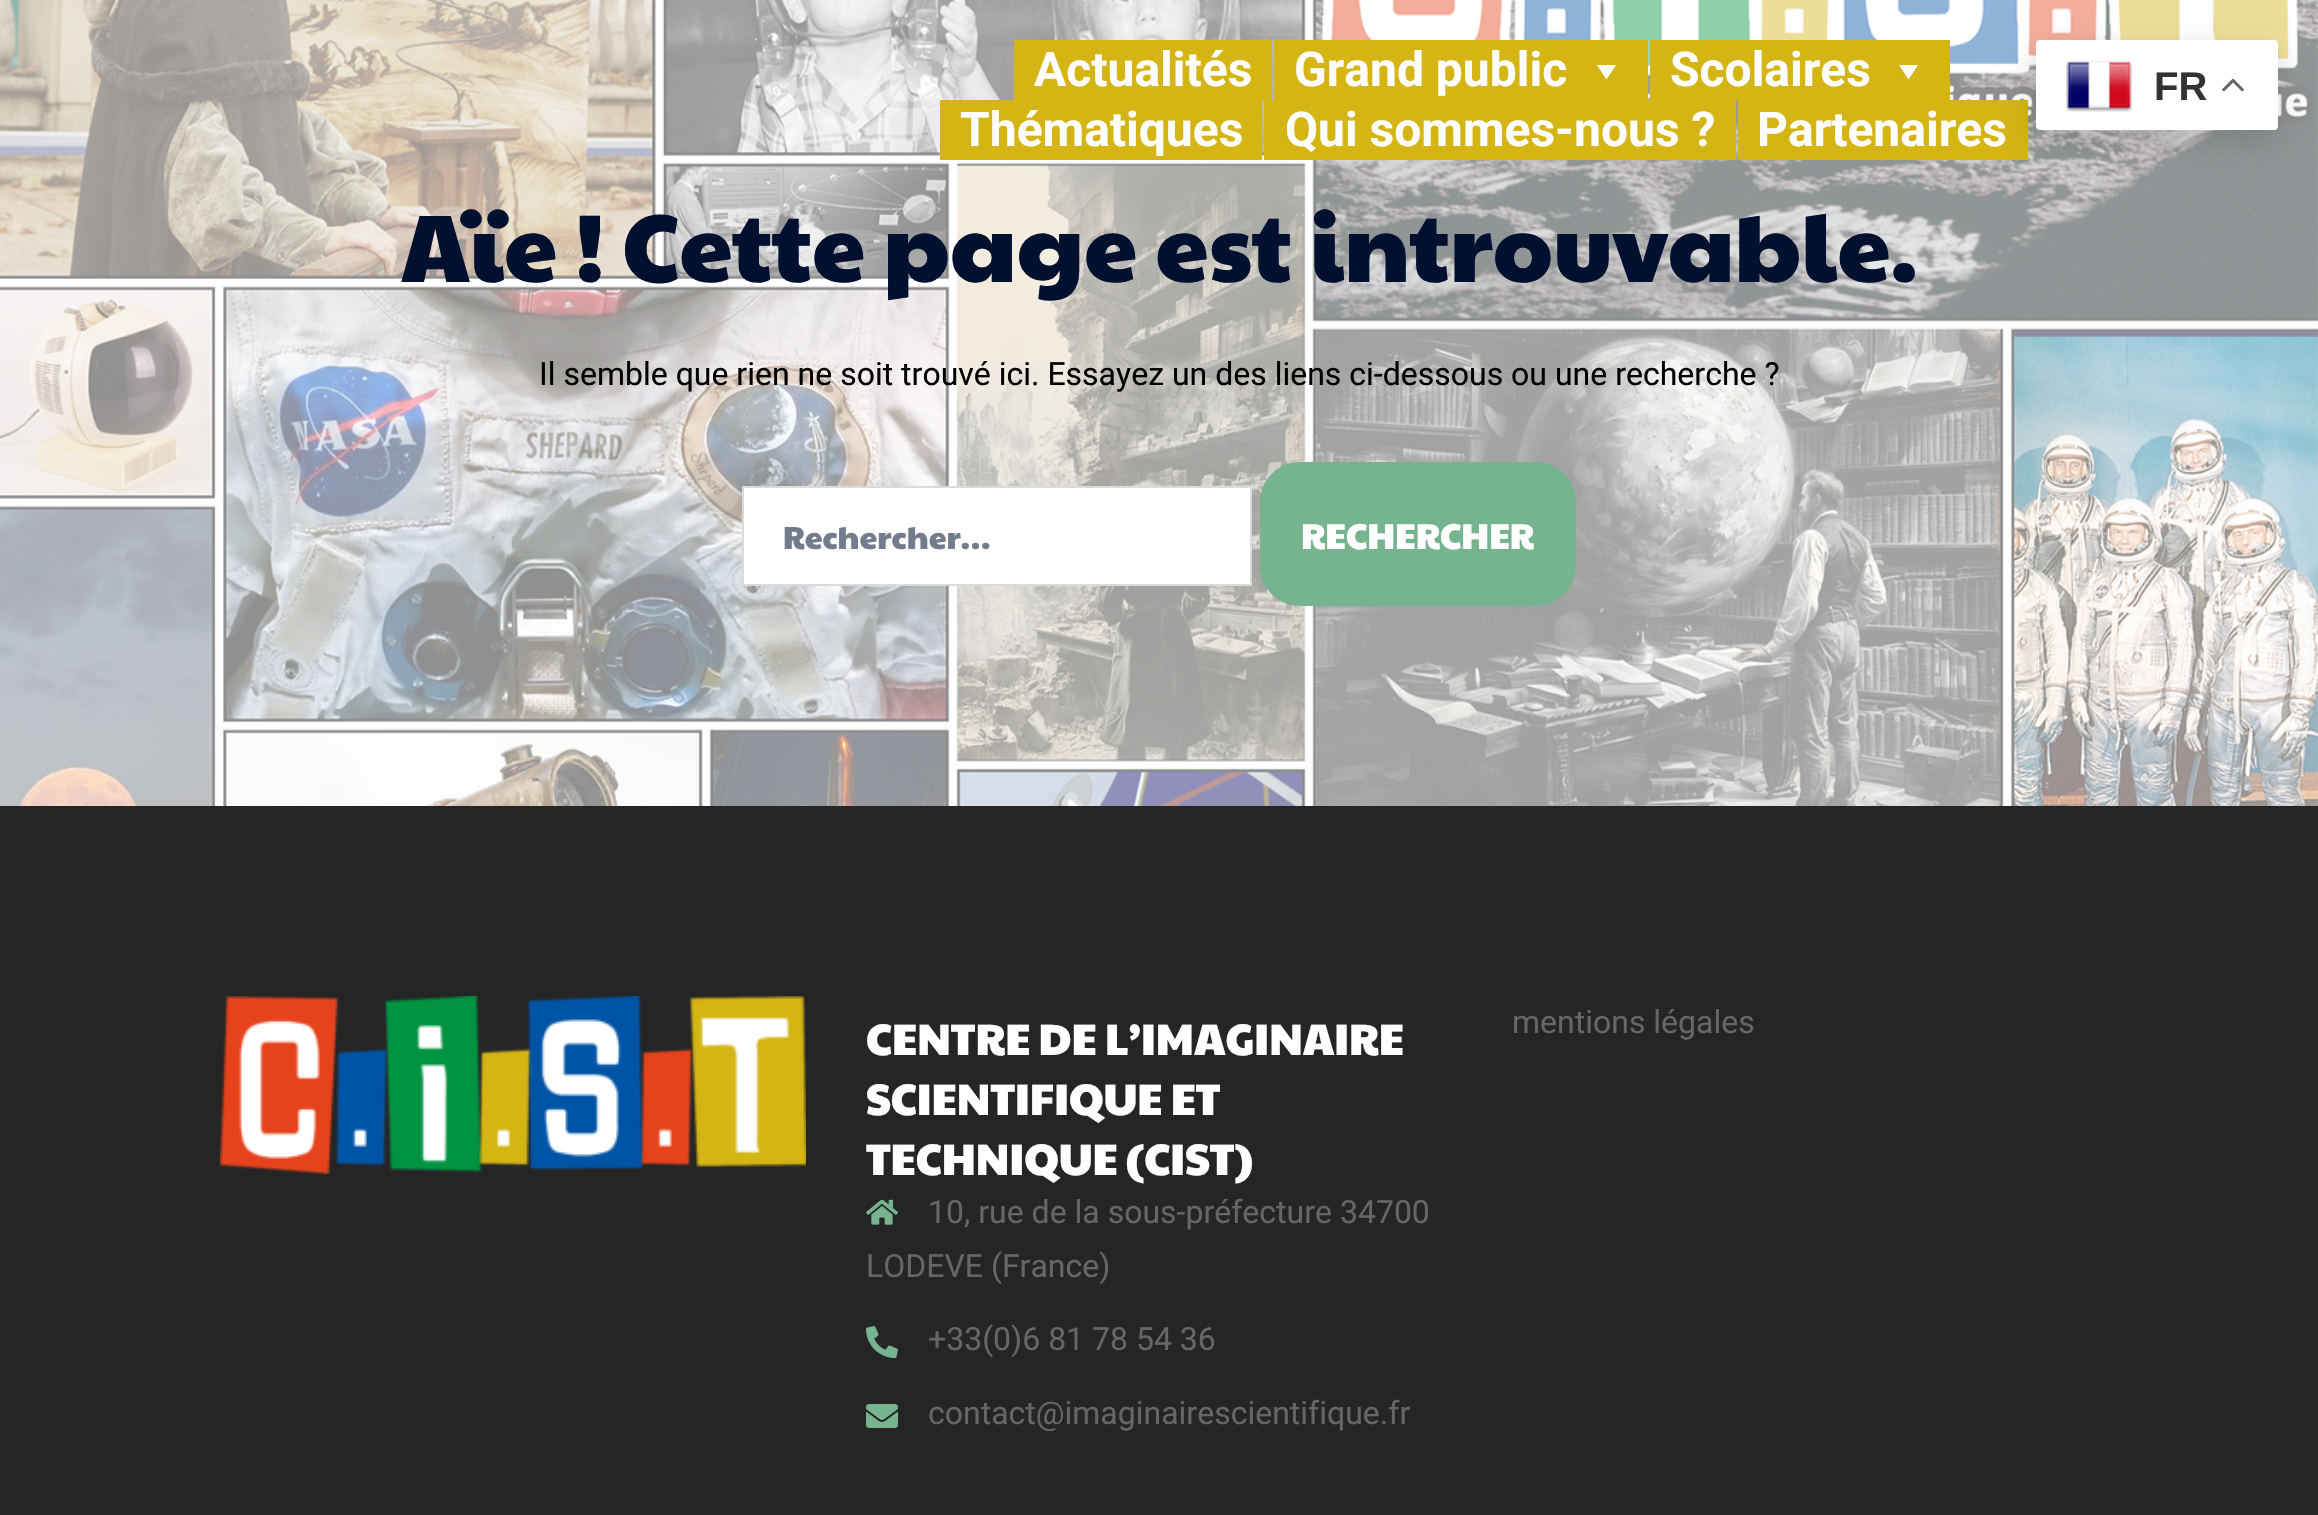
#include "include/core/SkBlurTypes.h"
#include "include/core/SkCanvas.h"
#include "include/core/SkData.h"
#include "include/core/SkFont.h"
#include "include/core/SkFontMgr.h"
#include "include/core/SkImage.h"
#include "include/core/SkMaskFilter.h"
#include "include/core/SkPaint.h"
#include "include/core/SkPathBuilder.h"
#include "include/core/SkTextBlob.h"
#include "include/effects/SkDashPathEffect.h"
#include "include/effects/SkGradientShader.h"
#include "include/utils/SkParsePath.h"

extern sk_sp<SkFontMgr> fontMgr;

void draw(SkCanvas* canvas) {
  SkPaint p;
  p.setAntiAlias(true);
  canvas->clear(SK_ColorWHITE);
  canvas->drawImageRect(SkImages::DeferredFromEncodedData(SkData::MakeFromFileName("images/1.png")), SkRect::MakeLTRB(0, 0, 2318, 806), SkSamplingOptions());
  p.setColor(SkColorSetRGB(212, 181, 20));
  canvas->drawRect(SkRect::MakeLTRB(1014, 40, 1272, 100), p);
  p.setColor(SkColorSetARGB(26, 255, 255, 255));
  canvas->drawRect(SkRect::MakeLTRB(1272, 40, 1274, 100), p);
  p.setColor(SkColorSetRGB(212, 181, 20));
  canvas->drawRect(SkRect::MakeLTRB(1274, 40, 1648, 100), p);
  p.setColor(SK_ColorWHITE);
  canvas->drawPath(SkPathBuilder().moveTo(1616, 65).lineTo(1606.5f, 79.5f).lineTo(1597, 65).close().detach(), p);
  p.setColor(SkColorSetARGB(26, 255, 255, 255));
  canvas->drawRect(SkRect::MakeLTRB(1648, 40, 1650, 100), p);
  p.setColor(SkColorSetRGB(212, 181, 20));
  canvas->drawRect(SkRect::MakeLTRB(1650, 40, 1950, 100), p);
  p.setColor(SK_ColorWHITE);
  canvas->drawPath(SkPathBuilder().moveTo(1918, 65).lineTo(1908.5f, 79.5f).lineTo(1899, 65).close().detach(), p);
  p.setColor(SkColorSetARGB(26, 255, 255, 255));
  canvas->drawRect(SkRect::MakeLTRB(938, 100, 940, 160), p);
  p.setColor(SkColorSetRGB(212, 181, 20));
  canvas->drawRect(SkRect::MakeLTRB(940, 100, 1262, 160), p);
  p.setColor(SkColorSetARGB(26, 255, 255, 255));
  canvas->drawRect(SkRect::MakeLTRB(1262, 100, 1264, 160), p);
  p.setColor(SkColorSetRGB(212, 181, 20));
  canvas->drawRect(SkRect::MakeLTRB(1264, 100, 1736, 160), p);
  p.setColor(SkColorSetARGB(26, 255, 255, 255));
  canvas->drawRect(SkRect::MakeLTRB(1736, 100, 1738, 160), p);
  p.setColor(SkColorSetRGB(212, 181, 20));
  canvas->drawRect(SkRect::MakeLTRB(1738, 100, 2028, 160), p);
  p.setColor(SK_ColorWHITE);
  canvas->drawRect(SkRect::MakeLTRB(743, 487, 1251, 585), p);
  p.setStyle(SkPaint::kStroke_Style);
  p.setStrokeWidth(2);
  p.setColor(SkColorSetRGB(219, 219, 219));
  canvas->drawRect(SkRect::MakeLTRB(743, 487, 1251, 585), p);
  p.setStyle(SkPaint::kFill_Style);
  p.setColor(SkColorSetRGB(118, 179, 143));
  canvas->drawRoundRect(SkRect::MakeLTRB(1261, 463, 1575, 605), 39, 39, p);
  p.setStyle(SkPaint::kStroke_Style);
  canvas->drawRoundRect(SkRect::MakeLTRB(1261, 463, 1575, 605), 39, 39, p);
  p.setStyle(SkPaint::kFill_Style);
  p.setColor(SkColorSetRGB(37, 37, 37));
  canvas->drawRect(SkRect::MakeLTRB(0, 806, 2318, 1515), p);
  canvas->drawImageRect(SkImages::DeferredFromEncodedData(SkData::MakeFromFileName("images/2.png")), SkRect::MakeLTRB(220, 996, 806, 1174), SkSamplingOptions());
  canvas->drawImageRect(SkImages::DeferredFromEncodedData(SkData::MakeFromFileName("images/3.png")), SkRect::MakeLTRB(866, 1199, 898, 1225), SkSamplingOptions());
  canvas->drawImageRect(SkImages::DeferredFromEncodedData(SkData::MakeFromFileName("images/4.png")), SkRect::MakeLTRB(866, 1326, 898, 1358), SkSamplingOptions());
  canvas->drawImageRect(SkImages::DeferredFromEncodedData(SkData::MakeFromFileName("images/5.png")), SkRect::MakeLTRB(866, 1404, 898, 1428), SkSamplingOptions());
  p.setColor(SkColorSetARGB(38, 0, 0, 0));
  p.setMaskFilter(SkMaskFilter::MakeBlur(kNormal_SkBlurStyle, 15));
  canvas->drawRoundRect(SkRect::MakeLTRB(2036, 50, 2278, 140), 4, 4, p);
  p.setMaskFilter(nullptr);
  p.setColor(SK_ColorWHITE);
  canvas->drawRoundRect(SkRect::MakeLTRB(2036, 40, 2278, 130), 4, 4, p);
  canvas->drawImageRect(SkImages::DeferredFromEncodedData(SkData::MakeFromFileName("images/6.png")), SkRect::MakeLTRB(2066, 60, 2132, 112), SkSamplingOptions());
  canvas->drawImageRect(SkImages::DeferredFromEncodedData(SkData::MakeFromFileName("images/7.png")), SkRect::MakeLTRB(2222, 78, 2244, 92), SkSamplingOptions());
  SkFont font1(fontMgr->matchFamilyStyle("Roboto", SkFontStyle::Bold()), 48);
  font1.setSubpixel(true);
  canvas->drawString("Actualités", 1034, 86, font1, p);
  canvas->drawString("Grand public", 1294, 86, font1, p);
  canvas->drawString("Scolaires", 1670, 86, font1, p);
  canvas->drawString("Thématiques", 960, 146, font1, p);
  canvas->drawString("Qui sommes-nous ?", 1285, 146, font1, p);
  canvas->drawString("Partenaires", 1757, 146, font1, p);
  SkFont font2(fontMgr->matchFamilyStyle("Paytone One", SkFontStyle::Normal()), 96);
  font2.setSubpixel(true);
  p.setColor(SkColorSetRGB(0, 16, 46));
  canvas->drawString("Aïe ! Cette page est introuvable.", 401, 282, font2, p);
  SkFont font3(fontMgr->matchFamilyStyle("Roboto", SkFontStyle::Normal()), 32);
  font3.setSubpixel(true);
  p.setColor(SK_ColorBLACK);
  canvas->drawString("Il semble que rien ne soit trouvé ici. Essayez un des liens ci-dessous ou une recherche ?", 539, 385, font3, p);
  SkFont font4(fontMgr->matchFamilyStyle("Paytone One", SkFontStyle::Normal()), 32);
  font4.setSubpixel(true);
  p.setColor(SkColorSetRGB(115, 124, 140));
  canvas->drawString("Rechercher…", 783, 549, font4, p);
  SkFont font5(fontMgr->matchFamilyStyle("Paytone One", SkFontStyle::Normal()), 36);
  font5.setSubpixel(true);
  p.setColor(SK_ColorWHITE);
  canvas->drawString("RECHERCHER", 1301, 549, font5, p);
  SkFont font6(fontMgr->matchFamilyStyle("Paytone One", SkFontStyle::Normal()), 44);
  font6.setSubpixel(true);
  canvas->drawString("CENTRE DE L’IMAGINAIRE", 866, 1055, font6, p);
  canvas->drawString("SCIENTIFIQUE ET", 866, 1115, font6, p);
  canvas->drawString("TECHNIQUE (CIST)", 866, 1175, font6, p);
  p.setColor(SkColorSetRGB(102, 102, 102));
  canvas->drawString("10, rue de la sous-préfecture 34700", 928, 1223, font3, p);
  canvas->drawString("LODEVE (France)", 866, 1277, font3, p);
  canvas->drawString("+33(0)6 81 78 54 36", 928, 1350, font3, p);
  canvas->drawString("contact@imaginairescientifique.fr", 928, 1424, font3, p);
  canvas->drawString("mentions légales", 1512, 1033, font3, p);
  SkFont font7(fontMgr->matchFamilyStyle("Liberation Sans", SkFontStyle::Bold()), 40);
  font7.setSubpixel(true);
  p.setColor(SkColorSetRGB(51, 51, 51));
  canvas->drawString("FR", 2154, 100, font7, p);
}
